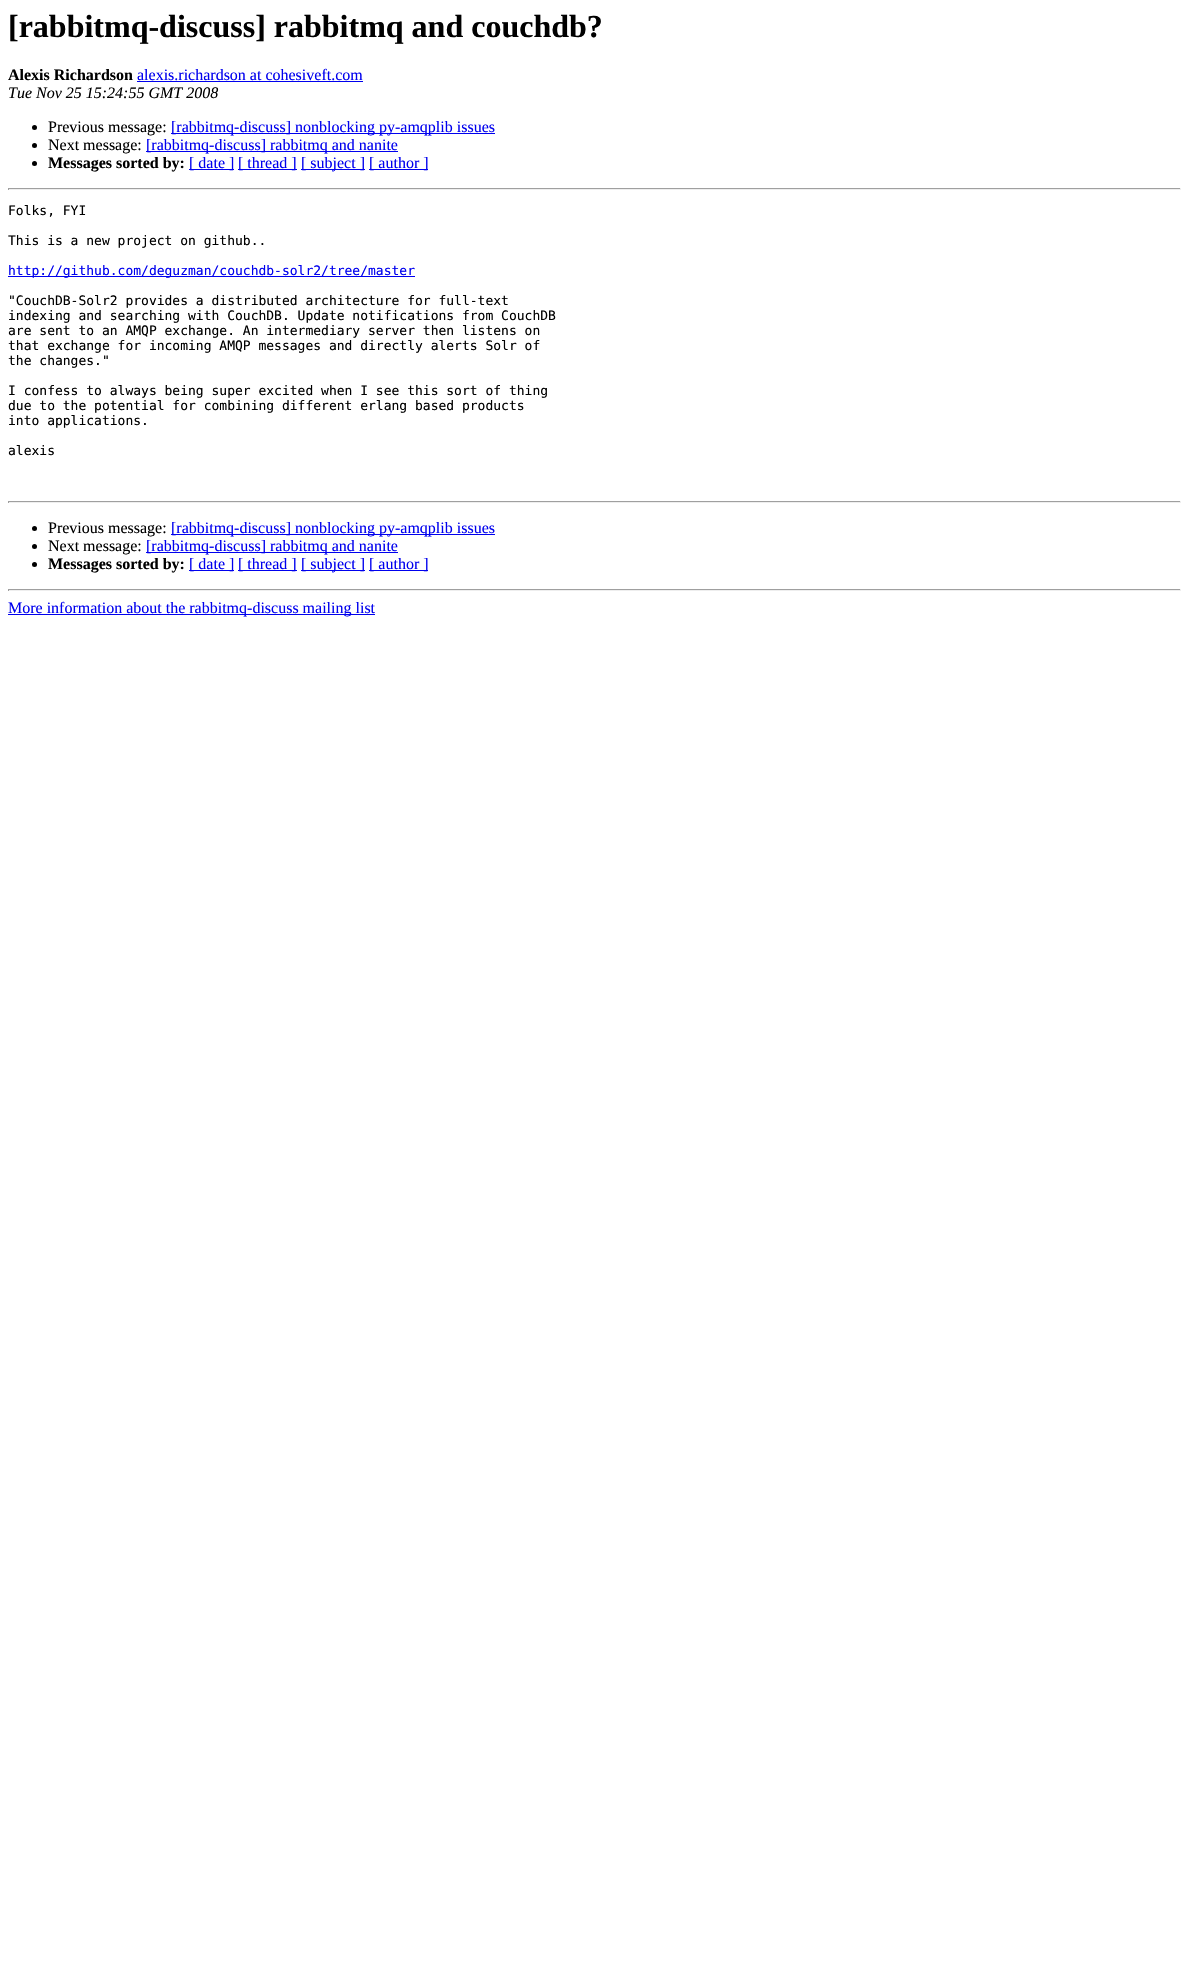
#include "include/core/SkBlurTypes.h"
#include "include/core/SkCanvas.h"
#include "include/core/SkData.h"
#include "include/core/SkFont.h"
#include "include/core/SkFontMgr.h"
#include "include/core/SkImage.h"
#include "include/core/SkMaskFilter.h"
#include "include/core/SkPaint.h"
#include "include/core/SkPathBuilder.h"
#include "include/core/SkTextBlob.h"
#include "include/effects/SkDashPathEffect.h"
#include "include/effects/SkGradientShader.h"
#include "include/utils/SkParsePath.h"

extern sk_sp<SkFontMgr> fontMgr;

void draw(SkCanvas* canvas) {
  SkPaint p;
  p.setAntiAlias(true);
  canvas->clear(SK_ColorWHITE);
  p.setColor(SkColorSetRGB(0, 0, 238));
  canvas->drawRect(SkRect::MakeLTRB(137, 81, 363, 82), p);
  p.setColor(SK_ColorBLACK);
  canvas->drawCircle(34.5f, 127.5f, 2.5f, p);
  p.setColor(SkColorSetRGB(0, 0, 238));
  canvas->drawRect(SkRect::MakeLTRB(171, 133, 495, 134), p);
  p.setColor(SK_ColorBLACK);
  canvas->drawCircle(34.5f, 145.5f, 2.5f, p);
  p.setColor(SkColorSetRGB(0, 0, 238));
  canvas->drawRect(SkRect::MakeLTRB(146, 151, 398, 152), p);
  p.setColor(SK_ColorBLACK);
  canvas->drawCircle(34.5f, 163.5f, 2.5f, p);
  p.setColor(SkColorSetRGB(0, 0, 238));
  canvas->drawRect(SkRect::MakeLTRB(189, 169, 234, 170), p);
  canvas->drawRect(SkRect::MakeLTRB(238, 169, 297, 170), p);
  canvas->drawRect(SkRect::MakeLTRB(301, 169, 365, 170), p);
  canvas->drawRect(SkRect::MakeLTRB(369, 169, 428, 170), p);
  p.setColor(SkColorSetRGB(159, 159, 159));
  canvas->drawRect(SkRect::MakeLTRB(8, 188, 1181, 189), p);
  p.setColor(SkColorSetRGB(238, 238, 238));
  canvas->drawRect(SkRect::MakeLTRB(1180, 188, 1181, 190), p);
  canvas->drawRect(SkRect::MakeLTRB(8, 189, 1181, 190), p);
  p.setColor(SkColorSetRGB(159, 159, 159));
  canvas->drawRect(SkRect::MakeLTRB(8, 188, 9, 190), p);
  p.setColor(SkColorSetRGB(0, 0, 238));
  canvas->drawRect(SkRect::MakeLTRB(8, 276, 415, 277), p);
  p.setColor(SkColorSetRGB(159, 159, 159));
  canvas->drawRect(SkRect::MakeLTRB(8, 501, 1181, 502), p);
  p.setColor(SkColorSetRGB(238, 238, 238));
  canvas->drawRect(SkRect::MakeLTRB(1180, 501, 1181, 503), p);
  canvas->drawRect(SkRect::MakeLTRB(8, 502, 1181, 503), p);
  p.setColor(SkColorSetRGB(159, 159, 159));
  canvas->drawRect(SkRect::MakeLTRB(8, 501, 9, 503), p);
  p.setColor(SK_ColorBLACK);
  canvas->drawCircle(34.5f, 528.5f, 2.5f, p);
  p.setColor(SkColorSetRGB(0, 0, 238));
  canvas->drawRect(SkRect::MakeLTRB(171, 534, 495, 535), p);
  p.setColor(SK_ColorBLACK);
  canvas->drawCircle(34.5f, 546.5f, 2.5f, p);
  p.setColor(SkColorSetRGB(0, 0, 238));
  canvas->drawRect(SkRect::MakeLTRB(146, 552, 398, 553), p);
  p.setColor(SK_ColorBLACK);
  canvas->drawCircle(34.5f, 564.5f, 2.5f, p);
  p.setColor(SkColorSetRGB(0, 0, 238));
  canvas->drawRect(SkRect::MakeLTRB(189, 570, 234, 571), p);
  canvas->drawRect(SkRect::MakeLTRB(238, 570, 297, 571), p);
  canvas->drawRect(SkRect::MakeLTRB(301, 570, 365, 571), p);
  canvas->drawRect(SkRect::MakeLTRB(369, 570, 428, 571), p);
  p.setColor(SkColorSetRGB(159, 159, 159));
  canvas->drawRect(SkRect::MakeLTRB(8, 589, 1181, 590), p);
  p.setColor(SkColorSetRGB(238, 238, 238));
  canvas->drawRect(SkRect::MakeLTRB(1180, 589, 1181, 591), p);
  canvas->drawRect(SkRect::MakeLTRB(8, 590, 1181, 591), p);
  p.setColor(SkColorSetRGB(159, 159, 159));
  canvas->drawRect(SkRect::MakeLTRB(8, 589, 9, 591), p);
  p.setColor(SkColorSetRGB(0, 0, 238));
  canvas->drawRect(SkRect::MakeLTRB(8, 614, 375, 615), p);
  SkFont font1(fontMgr->matchFamilyStyle("Liberation Serif", SkFontStyle::Bold()), 32);
  font1.setSubpixel(true);
  p.setColor(SK_ColorBLACK);
  canvas->drawString("[rabbitmq-discuss] rabbitmq and couchdb?", 8, 37, font1, p);
  SkFont font2(fontMgr->matchFamilyStyle("Liberation Serif", SkFontStyle::Bold()), 16);
  font2.setSubpixel(true);
  canvas->drawString("Alexis Richardson", 8, 80, font2, p);
  SkFont font3(fontMgr->matchFamilyStyle("Liberation Serif", SkFontStyle::Normal()), 16);
  font3.setSubpixel(true);
  p.setColor(SkColorSetRGB(0, 0, 238));
  canvas->drawString("alexis.richardson at cohesiveft.com", 137, 80, font3, p);
  SkFont font4(fontMgr->matchFamilyStyle("Liberation Serif", SkFontStyle::Italic()), 16);
  font4.setSubpixel(true);
  p.setColor(SK_ColorBLACK);
  canvas->drawString("Tue Nov 25 15:24:55 GMT 2008", 8, 98, font4, p);
  canvas->drawString("Previous message:", 48, 132, font3, p);
  p.setColor(SkColorSetRGB(0, 0, 238));
  canvas->drawString("[rabbitmq-discuss] nonblocking py-amqplib issues", 171, 132, font3, p);
  p.setColor(SK_ColorBLACK);
  canvas->drawString("Next message:", 48, 150, font3, p);
  p.setColor(SkColorSetRGB(0, 0, 238));
  canvas->drawString("[rabbitmq-discuss] rabbitmq and nanite", 146, 150, font3, p);
  p.setColor(SK_ColorBLACK);
  canvas->drawString("Messages sorted by:", 48, 168, font2, p);
  p.setColor(SkColorSetRGB(0, 0, 238));
  canvas->drawString("[ date ]", 189, 168, font3, p);
  canvas->drawString("[ thread ]", 238, 168, font3, p);
  canvas->drawString("[ subject ]", 301, 168, font3, p);
  canvas->drawString("[ author ]", 369, 168, font3, p);
  SkFont font5(fontMgr->matchFamilyStyle("DejaVu Sans Mono", SkFontStyle::Normal()), 13);
  font5.setSubpixel(true);
  p.setColor(SK_ColorBLACK);
  canvas->drawString("Folks, FYI", 8, 215, font5, p);
  canvas->drawString("This is a new project on github..", 8, 245, font5, p);
  p.setColor(SkColorSetRGB(0, 0, 238));
  canvas->drawString("http://github.com/deguzman/couchdb-solr2/tree/master", 8, 275, font5, p);
  p.setColor(SK_ColorBLACK);
  canvas->drawString("\"CouchDB-Solr2 provides a distributed architecture for full-text", 8, 305, font5, p);
  canvas->drawString("indexing and searching with CouchDB. Update notifications from CouchDB", 8, 320, font5, p);
  canvas->drawString("are sent to an AMQP exchange. An intermediary server then listens on", 8, 335, font5, p);
  canvas->drawString("that exchange for incoming AMQP messages and directly alerts Solr of", 8, 350, font5, p);
  canvas->drawString("the changes.\"", 8, 365, font5, p);
  canvas->drawString("I confess to always being super excited when I see this sort of thing", 8, 395, font5, p);
  canvas->drawString("due to the potential for combining different erlang based products", 8, 410, font5, p);
  canvas->drawString("into applications.", 8, 425, font5, p);
  canvas->drawString("alexis", 8, 455, font5, p);
  canvas->drawString("Previous message:", 48, 533, font3, p);
  p.setColor(SkColorSetRGB(0, 0, 238));
  canvas->drawString("[rabbitmq-discuss] nonblocking py-amqplib issues", 171, 533, font3, p);
  p.setColor(SK_ColorBLACK);
  canvas->drawString("Next message:", 48, 551, font3, p);
  p.setColor(SkColorSetRGB(0, 0, 238));
  canvas->drawString("[rabbitmq-discuss] rabbitmq and nanite", 146, 551, font3, p);
  p.setColor(SK_ColorBLACK);
  canvas->drawString("Messages sorted by:", 48, 569, font2, p);
  p.setColor(SkColorSetRGB(0, 0, 238));
  canvas->drawString("[ date ]", 189, 569, font3, p);
  canvas->drawString("[ thread ]", 238, 569, font3, p);
  canvas->drawString("[ subject ]", 301, 569, font3, p);
  canvas->drawString("[ author ]", 369, 569, font3, p);
  canvas->drawString("More information about the rabbitmq-discuss mailing list", 8, 613, font3, p);
}
